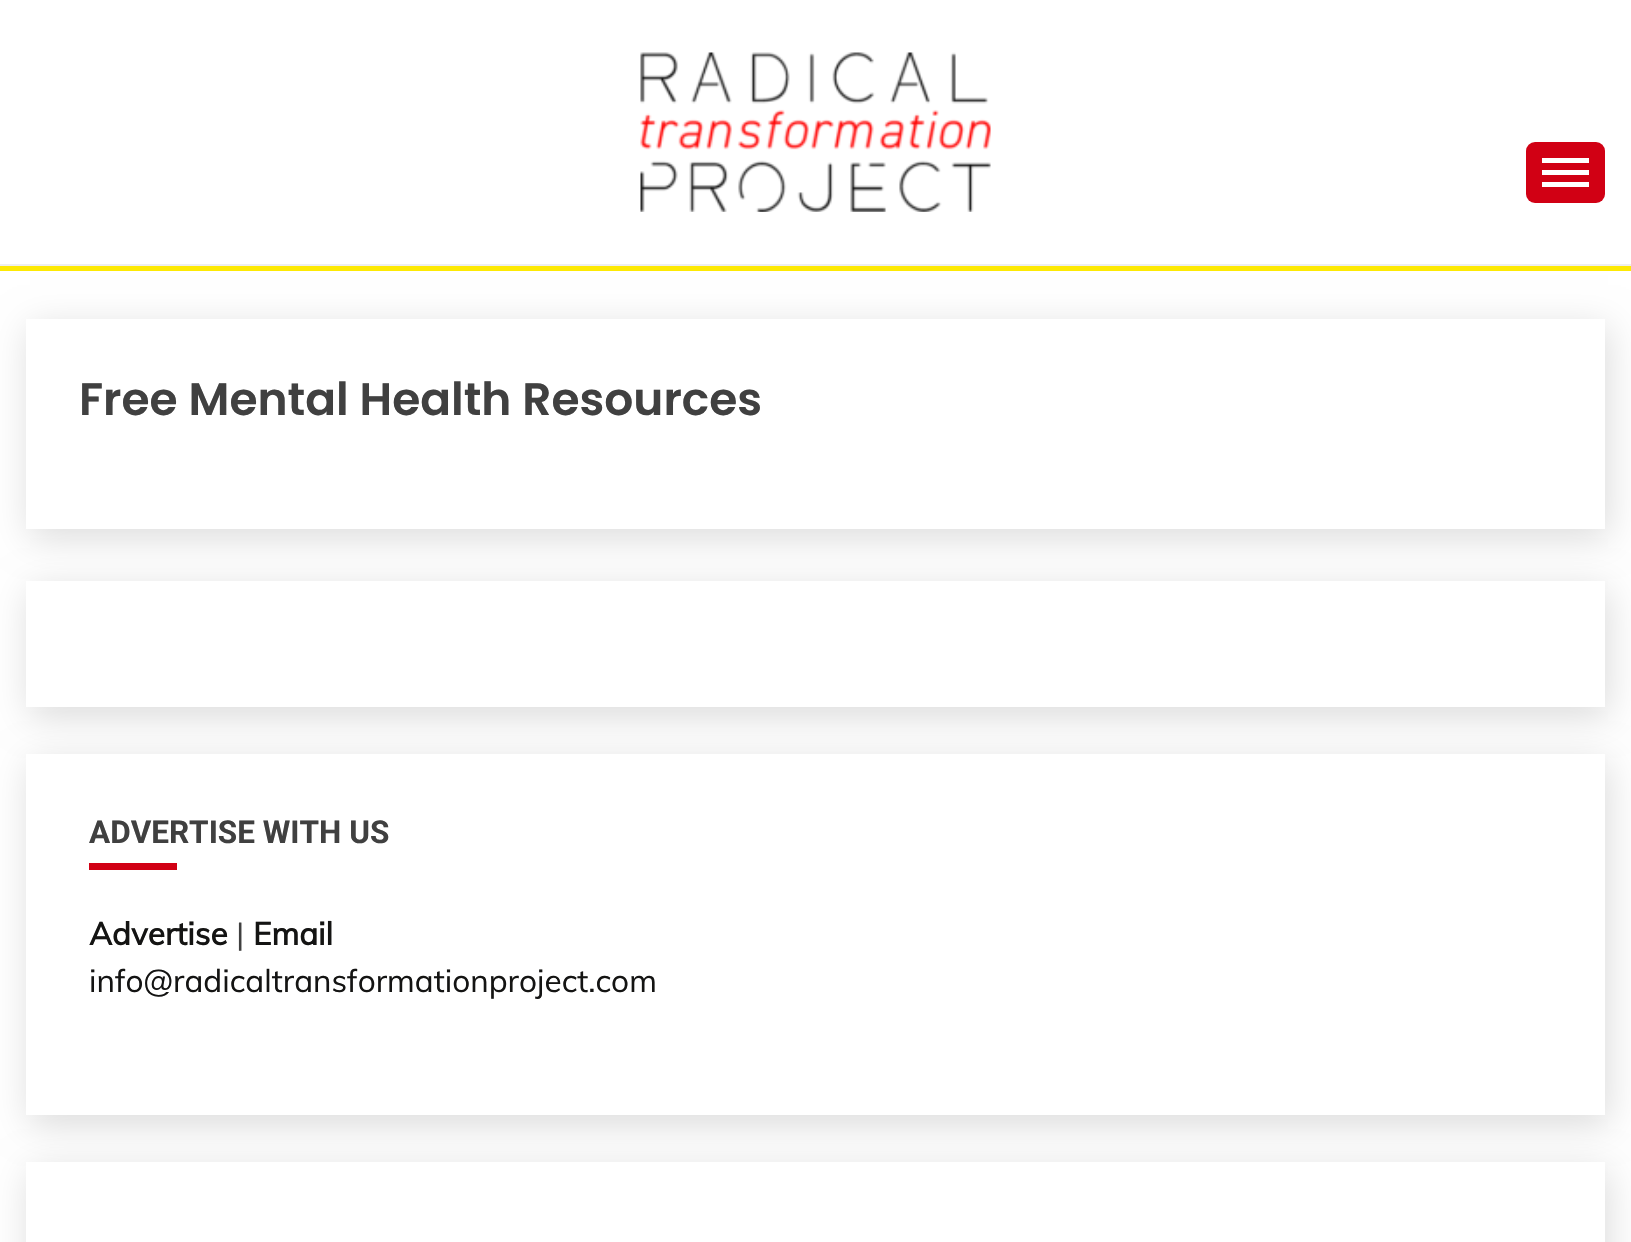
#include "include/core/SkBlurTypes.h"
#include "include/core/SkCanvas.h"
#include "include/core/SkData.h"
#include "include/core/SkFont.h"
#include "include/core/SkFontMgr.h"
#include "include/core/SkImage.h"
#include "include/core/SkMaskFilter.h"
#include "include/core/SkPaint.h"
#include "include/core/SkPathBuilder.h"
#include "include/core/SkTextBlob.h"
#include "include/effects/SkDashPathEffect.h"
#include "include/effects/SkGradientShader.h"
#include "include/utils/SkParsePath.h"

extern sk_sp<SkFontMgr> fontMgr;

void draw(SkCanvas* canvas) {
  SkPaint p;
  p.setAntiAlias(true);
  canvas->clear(SK_ColorWHITE);
  p.setColor(SkColorSetRGB(238, 238, 238));
  canvas->drawRect(SkRect::MakeLTRB(0, 264, 1631, 266), p);
  canvas->drawImageRect(SkImages::DeferredFromEncodedData(SkData::MakeFromFileName("images/1.png")), SkRect::MakeLTRB(640, 52, 991, 212), SkSamplingOptions());
  p.setColor(SkColorSetRGB(209, 0, 20));
  canvas->drawRoundRect(SkRect::MakeLTRB(1526, 142, 1605, 203), 9, 9, p);
  p.setColor(SK_ColorWHITE);
  canvas->drawRect(SkRect::MakeLTRB(1542, 158, 1589, 163), p);
  canvas->drawRect(SkRect::MakeLTRB(1542, 170, 1589, 175), p);
  canvas->drawRect(SkRect::MakeLTRB(1542, 182, 1589, 187), p);
  p.setColor(SkColorSetRGB(253, 233, 4));
  canvas->drawRect(SkRect::MakeLTRB(0, 266, 1631, 271), p);
  p.setColor(SkColorSetARGB(36, 0, 0, 0));
  p.setMaskFilter(SkMaskFilter::MakeBlur(kNormal_SkBlurStyle, 17.5f));
  canvas->drawRect(SkRect::MakeLTRB(30, 327, 1608, 537), p);
  p.setMaskFilter(nullptr);
  p.setColor(SK_ColorWHITE);
  canvas->drawRect(SkRect::MakeLTRB(26, 319, 1605, 529), p);
  p.setColor(SkColorSetARGB(36, 0, 0, 0));
  p.setMaskFilter(SkMaskFilter::MakeBlur(kNormal_SkBlurStyle, 17.5f));
  canvas->drawRect(SkRect::MakeLTRB(30, 590, 1608, 716), p);
  p.setMaskFilter(nullptr);
  p.setColor(SK_ColorWHITE);
  canvas->drawRect(SkRect::MakeLTRB(26, 581, 1605, 707), p);
  p.setColor(SkColorSetARGB(36, 0, 0, 0));
  p.setMaskFilter(SkMaskFilter::MakeBlur(kNormal_SkBlurStyle, 17.5f));
  canvas->drawRect(SkRect::MakeLTRB(30, 763, 1608, 1124), p);
  p.setMaskFilter(nullptr);
  p.setColor(SK_ColorWHITE);
  canvas->drawRect(SkRect::MakeLTRB(26, 754, 1605, 1115), p);
  p.setColor(SkColorSetRGB(209, 0, 20));
  canvas->drawRect(SkRect::MakeLTRB(89, 863, 177, 870), p);
  p.setColor(SkColorSetARGB(36, 0, 0, 0));
  p.setMaskFilter(SkMaskFilter::MakeBlur(kNormal_SkBlurStyle, 17.5f));
  canvas->drawRect(SkRect::MakeLTRB(30, 1171, 1608, 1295), p);
  p.setMaskFilter(nullptr);
  p.setColor(SK_ColorWHITE);
  canvas->drawRect(SkRect::MakeLTRB(26, 1162, 1605, 1242), p);
  SkFont font1(fontMgr->matchFamilyStyle("Poppins", SkFontStyle(600, SkFontStyle::kNormal_Width, SkFontStyle::kUpright_Slant)), 45.5f);
  font1.setSubpixel(true);
  p.setColor(SkColorSetRGB(64, 64, 64));
  canvas->drawString("Free Mental Health Resources", 79, 415, font1, p);
  SkFont font2(fontMgr->matchFamilyStyle("Roboto", SkFontStyle::Bold()), 31.5f);
  font2.setSubpixel(true);
  canvas->drawString("ADVERTISE WITH US", 89, 843, font2, p);
  SkFont font3(fontMgr->matchFamilyStyle("Muli", SkFontStyle::Bold()), 31.5f);
  font3.setSubpixel(true);
  p.setColor(SkColorSetRGB(20, 20, 19));
  canvas->drawString("Advertise", 89, 945, font3, p);
  SkFont font4(fontMgr->matchFamilyStyle("Muli", SkFontStyle::Normal()), 31.5f);
  font4.setSubpixel(true);
  p.setColor(SkColorSetRGB(64, 64, 64));
  canvas->drawString("|", 236, 945, font4, p);
  p.setColor(SkColorSetRGB(20, 20, 19));
  canvas->drawString("Email", 253, 945, font3, p);
  canvas->drawString("info@radicaltransformationproject.com", 89, 992, font4, p);
}
